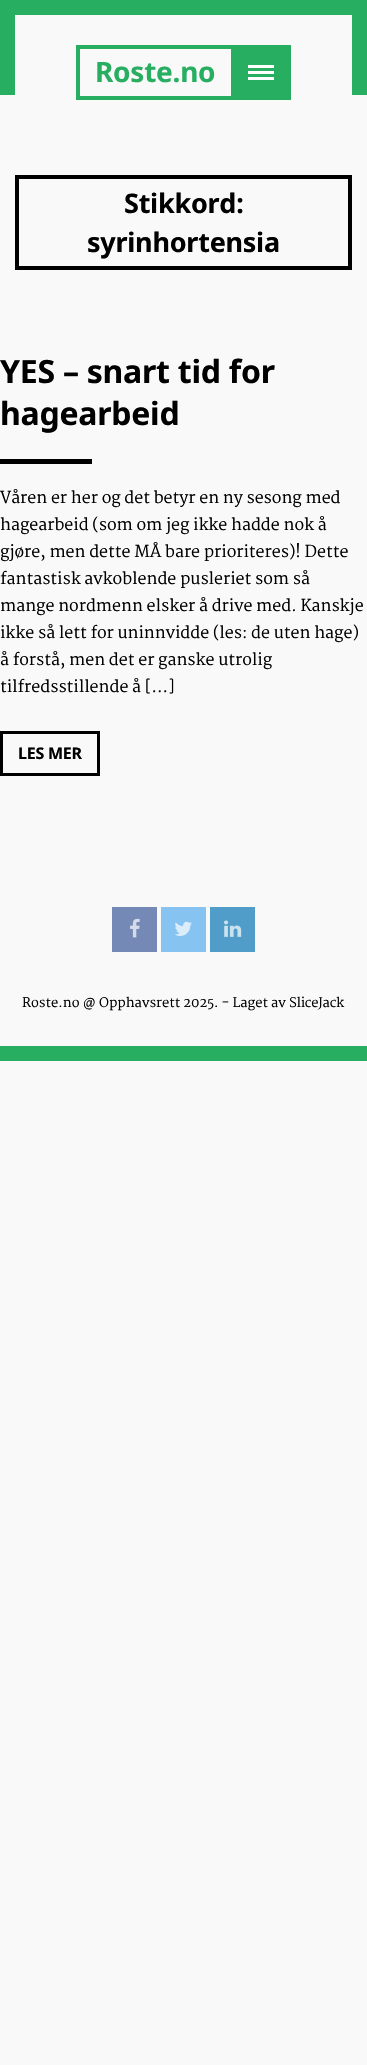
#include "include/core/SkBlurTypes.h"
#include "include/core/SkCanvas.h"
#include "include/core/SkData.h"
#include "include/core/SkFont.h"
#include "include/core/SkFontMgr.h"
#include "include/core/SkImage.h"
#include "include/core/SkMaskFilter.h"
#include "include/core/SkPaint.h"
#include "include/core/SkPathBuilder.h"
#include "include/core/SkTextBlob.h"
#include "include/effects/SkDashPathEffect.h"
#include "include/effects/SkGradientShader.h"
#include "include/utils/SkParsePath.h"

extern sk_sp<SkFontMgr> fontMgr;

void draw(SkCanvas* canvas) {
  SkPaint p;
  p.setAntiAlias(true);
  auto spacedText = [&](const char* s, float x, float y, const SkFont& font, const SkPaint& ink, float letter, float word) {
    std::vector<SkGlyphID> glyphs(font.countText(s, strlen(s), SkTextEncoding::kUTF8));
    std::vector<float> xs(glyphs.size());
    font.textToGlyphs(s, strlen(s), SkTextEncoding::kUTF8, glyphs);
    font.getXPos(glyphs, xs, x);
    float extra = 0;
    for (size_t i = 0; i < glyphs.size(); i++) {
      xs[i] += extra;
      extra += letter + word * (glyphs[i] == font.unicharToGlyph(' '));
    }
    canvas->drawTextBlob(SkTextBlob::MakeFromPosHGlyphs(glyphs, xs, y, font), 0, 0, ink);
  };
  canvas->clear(SkColorSetRGB(249, 249, 249));
  p.setColor(SkColorSetRGB(39, 174, 96));
  canvas->drawRect(SkRect::MakeLTRB(0, 0, 367, 15), p);
  canvas->drawRect(SkRect::MakeLTRB(0, 15, 15, 95), p);
  p.setStyle(SkPaint::kStroke_Style);
  p.setStrokeWidth(4);
  canvas->drawRect(SkRect::MakeLTRB(78, 47, 233, 98), p);
  p.setStyle(SkPaint::kFill_Style);
  canvas->drawRect(SkRect::MakeLTRB(235, 49, 287, 96), p);
  canvas->drawRect(SkRect::MakeLTRB(235, 45, 291, 49), p);
  canvas->drawRect(SkRect::MakeLTRB(287, 45, 291, 100), p);
  canvas->drawRect(SkRect::MakeLTRB(235, 96, 291, 100), p);
  p.setColor(SK_ColorWHITE);
  canvas->drawRect(SkRect::MakeLTRB(248, 71, 274, 74), p);
  canvas->drawRect(SkRect::MakeLTRB(248, 65, 274, 68), p);
  canvas->drawRect(SkRect::MakeLTRB(248, 77, 274, 80), p);
  p.setColor(SkColorSetRGB(39, 174, 96));
  canvas->drawRect(SkRect::MakeLTRB(352, 15, 367, 95), p);
  p.setStyle(SkPaint::kStroke_Style);
  p.setColor(SK_ColorBLACK);
  canvas->drawRect(SkRect::MakeLTRB(17, 177, 350, 268), p);
  p.setStyle(SkPaint::kFill_Style);
  canvas->drawRect(SkRect::MakeLTRB(0, 459, 92, 464), p);
  p.setStyle(SkPaint::kStroke_Style);
  p.setStrokeWidth(3);
  canvas->drawRect(SkRect::MakeLTRB(1.5f, 732.5f, 98.5f, 774.5f), p);
  p.setStyle(SkPaint::kFill_Style);
  p.setColor(SkColorSetRGB(116, 137, 181));
  canvas->drawRect(SkRect::MakeLTRB(112, 907, 157, 952), p);
  canvas->drawImageRect(SkImages::DeferredFromEncodedData(SkData::MakeFromFileName("images/1.png")), SkRect::MakeLTRB(130, 918, 140, 938), SkSamplingOptions());
  p.setColor(SkColorSetRGB(134, 195, 241));
  canvas->drawRect(SkRect::MakeLTRB(161, 907, 206, 952), p);
  canvas->drawImageRect(SkImages::DeferredFromEncodedData(SkData::MakeFromFileName("images/2.png")), SkRect::MakeLTRB(174, 921, 192, 936), SkSamplingOptions());
  p.setColor(SkColorSetRGB(81, 157, 201));
  canvas->drawRect(SkRect::MakeLTRB(210, 907, 255, 952), p);
  canvas->drawImageRect(SkImages::DeferredFromEncodedData(SkData::MakeFromFileName("images/3.png")), SkRect::MakeLTRB(224, 920, 242, 937), SkSamplingOptions());
  p.setColor(SkColorSetRGB(39, 174, 96));
  canvas->drawRect(SkRect::MakeLTRB(0, 1046, 367, 1061), p);
  SkFont font1(fontMgr->matchFamilyStyle("Noto Sans", SkFontStyle::Bold()), 28);
  font1.setSubpixel(true);
  spacedText("Roste.no", 95, 82, font1, p, -0.25f, 0);
  SkFont font2(fontMgr->matchFamilyStyle("Noto Sans", SkFontStyle::Bold()), 27);
  font2.setSubpixel(true);
  p.setColor(SK_ColorBLACK);
  spacedText("Stikkord:", 124, 213, font2, p, -0.25f, 0);
  spacedText("syrinhortensia", 87, 252, font2, p, -0.25f, 0);
  SkFont font3(fontMgr->matchFamilyStyle("Noto Sans", SkFontStyle::Bold()), 32);
  font3.setSubpixel(true);
  spacedText("YES – snart tid for", 0, 383, font3, p, -0.25f, 0);
  spacedText("hagearbeid", 0, 425, font3, p, -0.25f, 0);
  SkFont font4(fontMgr->matchFamilyStyle("Martel", SkFontStyle::Normal()), 16);
  font4.setSubpixel(true);
  canvas->drawString("Våren er her og det betyr en ny sesong med", 0, 503, font4, p);
  canvas->drawString("hagearbeid (som om jeg ikke hadde nok å", 0, 530, font4, p);
  canvas->drawString("gjøre, men dette MÅ bare prioriteres)! Dette", 0, 557, font4, p);
  canvas->drawString("fantastisk avkoblende pusleriet som så", 0, 584, font4, p);
  canvas->drawString("mange nordmenn elsker å drive med. Kanskje", 0, 611, font4, p);
  canvas->drawString("ikke så lett for uninnvidde (les: de uten hage)", 0, 638, font4, p);
  canvas->drawString("å forstå, men det er ganske utrolig", 0, 665, font4, p);
  canvas->drawString("tilfredsstillende å […]", 0, 692, font4, p);
  SkFont font5(fontMgr->matchFamilyStyle("Noto Sans", SkFontStyle::Bold()), 16);
  font5.setSubpixel(true);
  spacedText("LES MER", 18, 759, font5, p, -0.25f, 0);
  SkFont font6(fontMgr->matchFamilyStyle("Martel", SkFontStyle::Normal()), 13);
  font6.setSubpixel(true);
  canvas->drawString("Roste.no @ Opphavsrett 2025. - Laget av", 22, 1007, font6, p);
  spacedText("SliceJack", 289, 1007, font6, p, -0.25f, 0);
}
